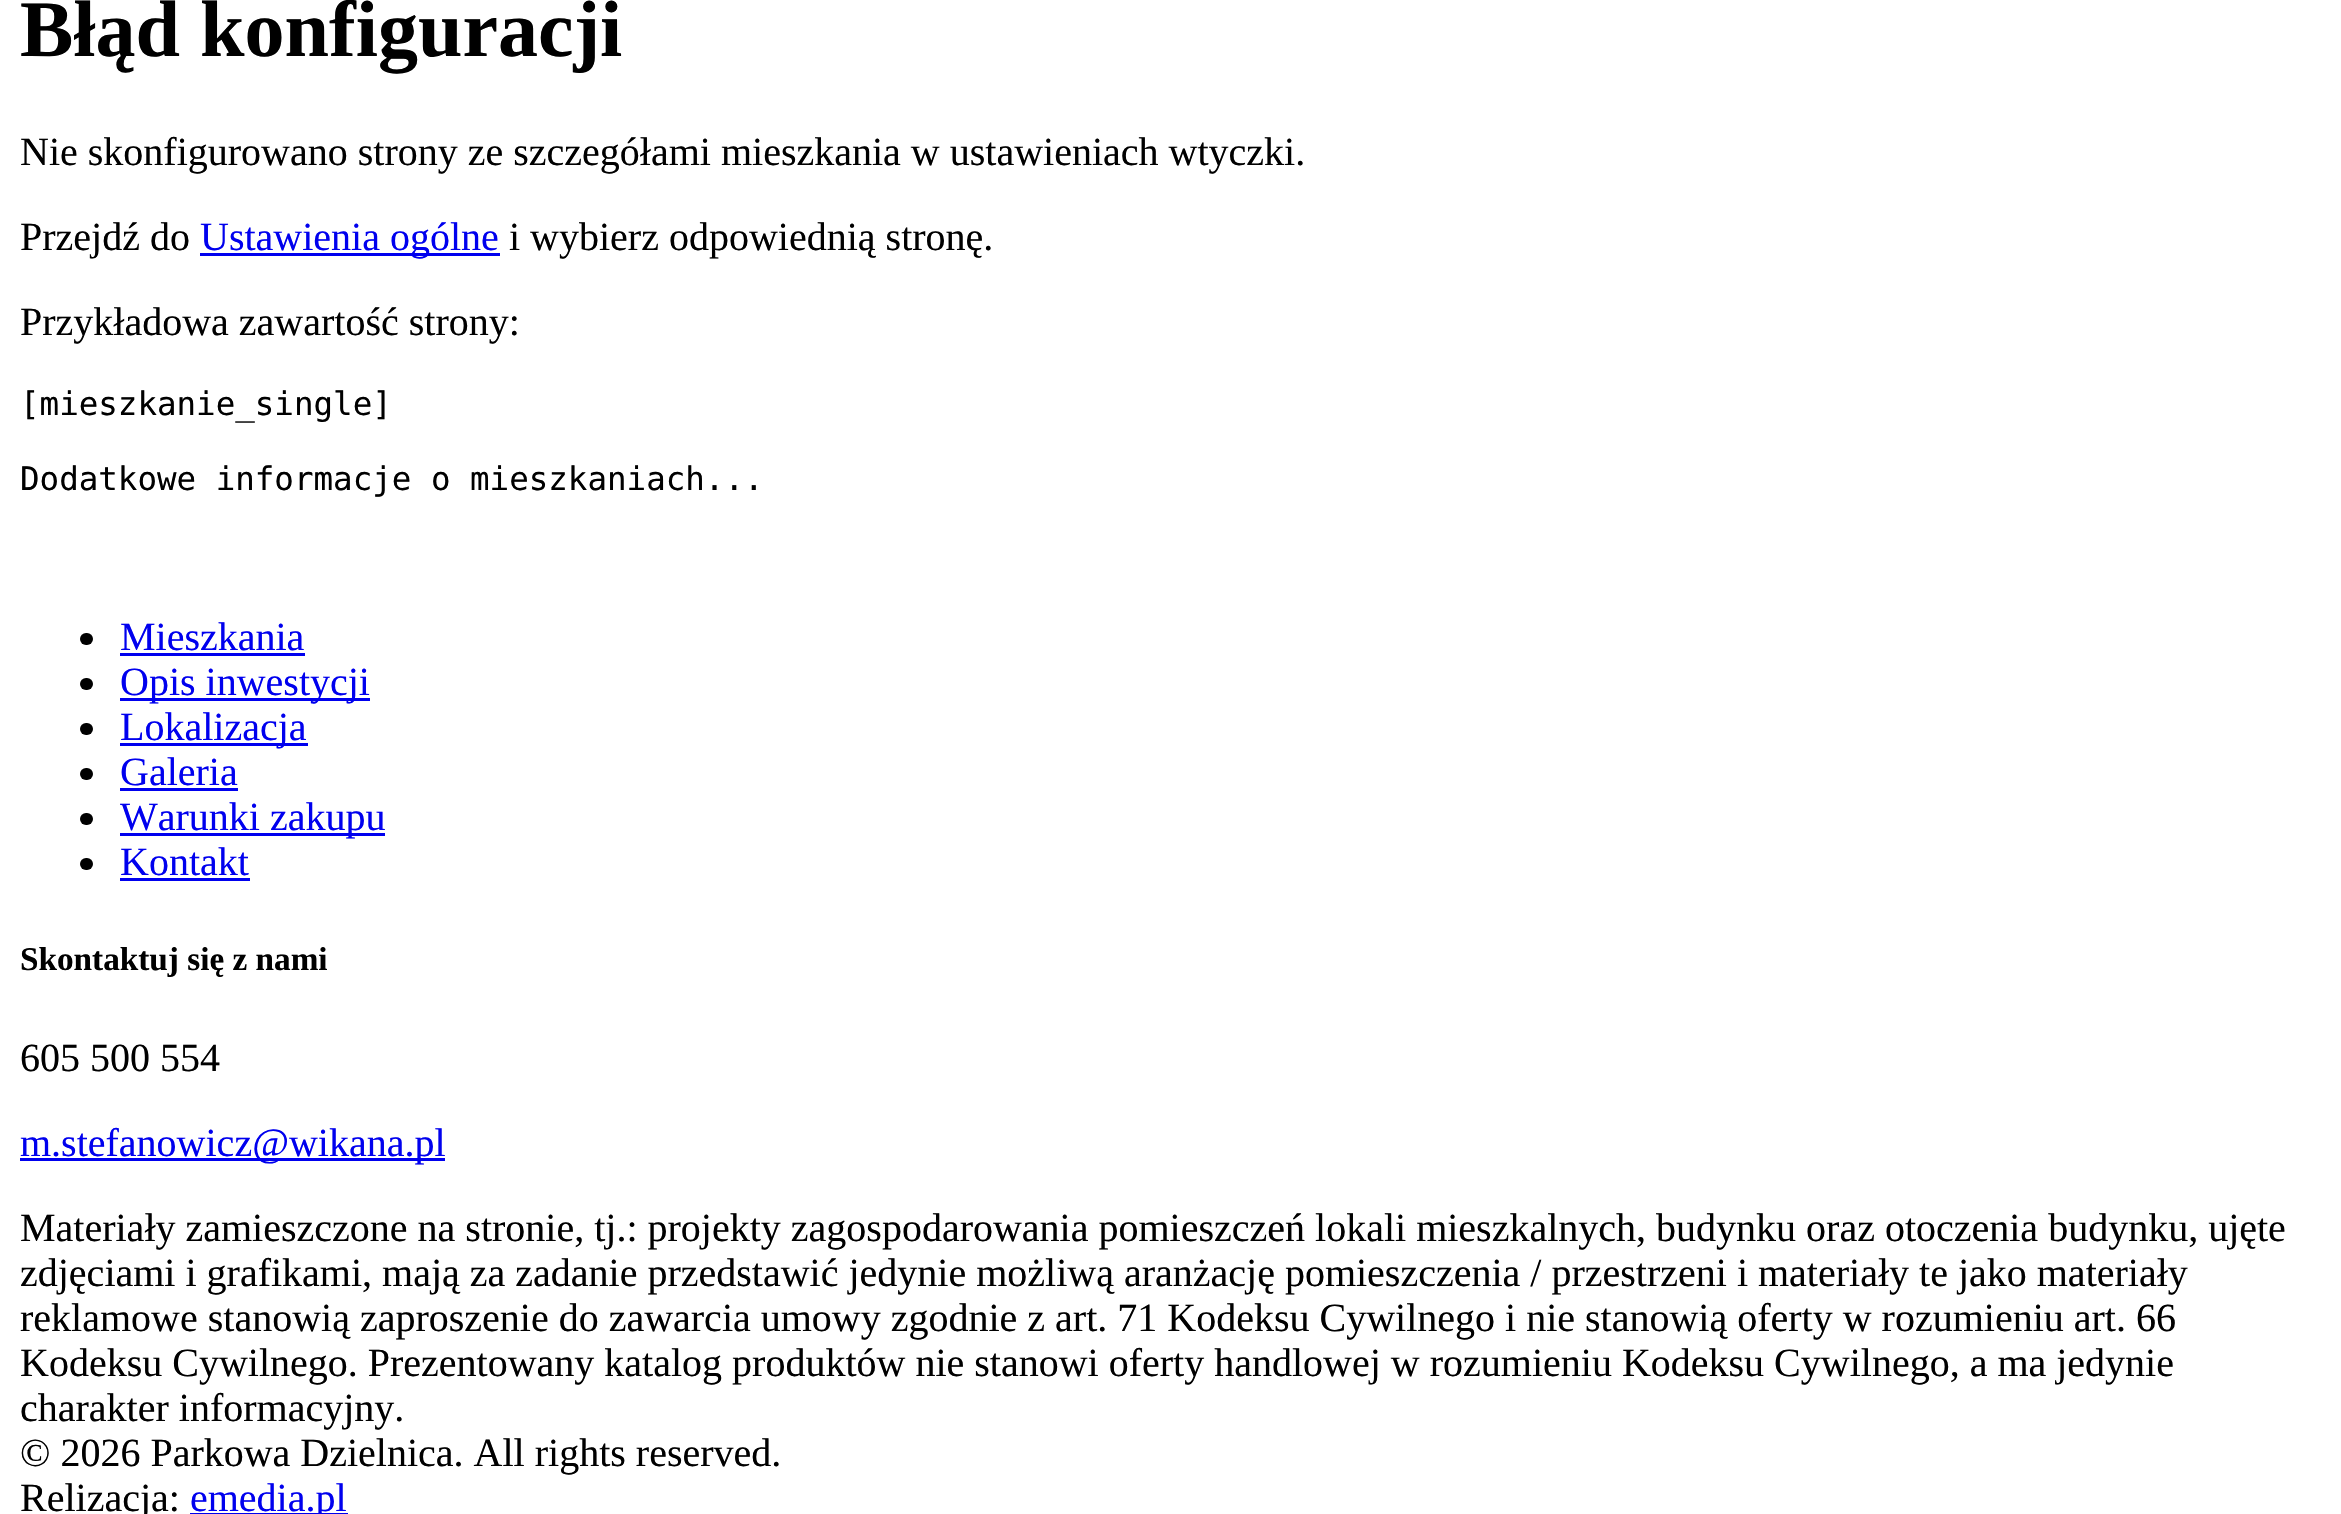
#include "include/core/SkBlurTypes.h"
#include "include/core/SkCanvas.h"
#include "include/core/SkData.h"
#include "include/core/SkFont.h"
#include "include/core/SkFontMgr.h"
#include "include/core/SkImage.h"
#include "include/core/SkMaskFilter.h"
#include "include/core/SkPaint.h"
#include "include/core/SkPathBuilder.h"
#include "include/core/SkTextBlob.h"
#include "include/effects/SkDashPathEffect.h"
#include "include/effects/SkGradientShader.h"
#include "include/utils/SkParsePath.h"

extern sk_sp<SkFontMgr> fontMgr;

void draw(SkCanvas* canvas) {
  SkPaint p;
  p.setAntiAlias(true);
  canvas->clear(SK_ColorWHITE);
  p.setColor(SkColorSetRGB(0, 0, 238));
  canvas->drawRect(SkRect::MakeLTRB(200, 253, 500, 256), p);
  p.setColor(SK_ColorBLACK);
  canvas->drawRoundRect(SkRect::MakeLTRB(80, 633, 93, 645), 6, 6, p);
  p.setColor(SkColorSetRGB(0, 0, 238));
  canvas->drawRect(SkRect::MakeLTRB(120, 653, 305, 656), p);
  p.setColor(SK_ColorBLACK);
  canvas->drawRoundRect(SkRect::MakeLTRB(80, 678, 93, 690), 6, 6, p);
  p.setColor(SkColorSetRGB(0, 0, 238));
  canvas->drawRect(SkRect::MakeLTRB(120, 698, 370, 701), p);
  p.setColor(SK_ColorBLACK);
  canvas->drawRoundRect(SkRect::MakeLTRB(80, 723, 93, 735), 6, 6, p);
  p.setColor(SkColorSetRGB(0, 0, 238));
  canvas->drawRect(SkRect::MakeLTRB(120, 743, 308, 746), p);
  p.setColor(SK_ColorBLACK);
  canvas->drawRoundRect(SkRect::MakeLTRB(80, 768, 93, 780), 6, 6, p);
  p.setColor(SkColorSetRGB(0, 0, 238));
  canvas->drawRect(SkRect::MakeLTRB(120, 788, 238, 791), p);
  p.setColor(SK_ColorBLACK);
  canvas->drawRoundRect(SkRect::MakeLTRB(80, 813, 93, 825), 6, 6, p);
  p.setColor(SkColorSetRGB(0, 0, 238));
  canvas->drawRect(SkRect::MakeLTRB(120, 833, 385, 836), p);
  p.setColor(SK_ColorBLACK);
  canvas->drawRoundRect(SkRect::MakeLTRB(80, 858, 93, 870), 6, 6, p);
  p.setColor(SkColorSetRGB(0, 0, 238));
  canvas->drawRect(SkRect::MakeLTRB(120, 878, 250, 881), p);
  canvas->drawRect(SkRect::MakeLTRB(20, 1158, 445, 1161), p);
  canvas->drawRect(SkRect::MakeLTRB(190, 1513, 348, 1514), p);
  SkFont font1(fontMgr->matchFamilyStyle("Liberation Serif", SkFontStyle::Bold()), 80);
  font1.setSubpixel(true);
  p.setColor(SK_ColorBLACK);
  canvas->drawString("Błąd konfiguracji", 20, 56, font1, p);
  SkFont font2(fontMgr->matchFamilyStyle("Liberation Serif", SkFontStyle::Normal()), 40);
  font2.setSubpixel(true);
  canvas->drawString("Nie skonfigurowano strony ze szczegółami mieszkania w ustawieniach wtyczki.", 20, 165, font2, p);
  canvas->drawString("Przejdź do", 20, 250, font2, p);
  p.setColor(SkColorSetRGB(0, 0, 238));
  canvas->drawString("Ustawienia ogólne", 200, 250, font2, p);
  p.setColor(SK_ColorBLACK);
  canvas->drawString("i wybierz odpowiednią stronę.", 509, 250, font2, p);
  canvas->drawString("Przykładowa zawartość strony:", 20, 335, font2, p);
  SkFont font3(fontMgr->matchFamilyStyle("DejaVu Sans Mono", SkFontStyle::Normal()), 32.5f);
  font3.setSubpixel(true);
  canvas->drawString("[mieszkanie_single]", 20, 415, font3, p);
  canvas->drawString("Dodatkowe informacje o mieszkaniach...", 20, 490, font3, p);
  p.setColor(SkColorSetRGB(0, 0, 238));
  canvas->drawString("Mieszkania", 120, 650, font2, p);
  canvas->drawString("Opis inwestycji", 120, 695, font2, p);
  canvas->drawString("Lokalizacja", 120, 740, font2, p);
  canvas->drawString("Galeria", 120, 785, font2, p);
  canvas->drawString("Warunki zakupu", 120, 830, font2, p);
  canvas->drawString("Kontakt", 120, 875, font2, p);
  SkFont font4(fontMgr->matchFamilyStyle("Liberation Serif", SkFontStyle::Bold()), 33.25f);
  font4.setSubpixel(true);
  p.setColor(SK_ColorBLACK);
  canvas->drawString("Skontaktuj się z nami", 20, 970, font4, p);
  canvas->drawString("605 500 554", 20, 1071, font2, p);
  p.setColor(SkColorSetRGB(0, 0, 238));
  canvas->drawString("m.stefanowicz@wikana.pl", 20, 1156, font2, p);
  p.setColor(SK_ColorBLACK);
  canvas->drawString("Materiały zamieszczone na stronie, tj.: projekty zagospodarowania pomieszczeń lokali mieszkalnych, budynku oraz otoczenia budynku, ujęte", 20, 1241, font2, p);
  canvas->drawString("zdjęciami i grafikami, mają za zadanie przedstawić jedynie możliwą aranżację pomieszczenia / przestrzeni i materiały te jako materiały", 20, 1286, font2, p);
  canvas->drawString("reklamowe stanowią zaproszenie do zawarcia umowy zgodnie z art. 71 Kodeksu Cywilnego i nie stanowią oferty w rozumieniu art. 66", 20, 1331, font2, p);
  canvas->drawString("Kodeksu Cywilnego. Prezentowany katalog produktów nie stanowi oferty handlowej w rozumieniu Kodeksu Cywilnego, a ma jedynie", 20, 1376, font2, p);
  canvas->drawString("charakter informacyjny.", 20, 1421, font2, p);
  canvas->drawString("© 2026 Parkowa Dzielnica. All rights reserved.", 20, 1466, font2, p);
  canvas->drawString("Relizacja:", 20, 1511, font2, p);
  p.setColor(SkColorSetRGB(0, 0, 238));
  canvas->drawString("emedia.pl", 190, 1511, font2, p);
}
